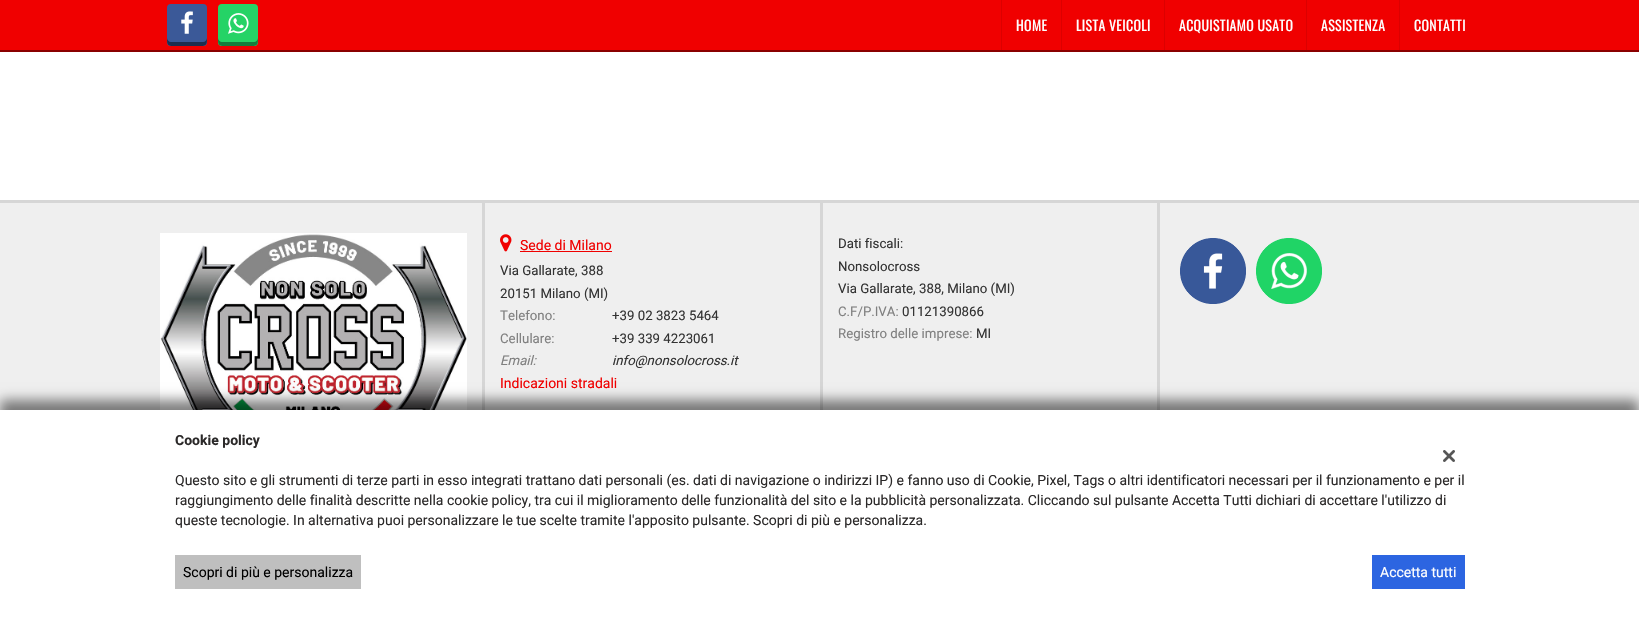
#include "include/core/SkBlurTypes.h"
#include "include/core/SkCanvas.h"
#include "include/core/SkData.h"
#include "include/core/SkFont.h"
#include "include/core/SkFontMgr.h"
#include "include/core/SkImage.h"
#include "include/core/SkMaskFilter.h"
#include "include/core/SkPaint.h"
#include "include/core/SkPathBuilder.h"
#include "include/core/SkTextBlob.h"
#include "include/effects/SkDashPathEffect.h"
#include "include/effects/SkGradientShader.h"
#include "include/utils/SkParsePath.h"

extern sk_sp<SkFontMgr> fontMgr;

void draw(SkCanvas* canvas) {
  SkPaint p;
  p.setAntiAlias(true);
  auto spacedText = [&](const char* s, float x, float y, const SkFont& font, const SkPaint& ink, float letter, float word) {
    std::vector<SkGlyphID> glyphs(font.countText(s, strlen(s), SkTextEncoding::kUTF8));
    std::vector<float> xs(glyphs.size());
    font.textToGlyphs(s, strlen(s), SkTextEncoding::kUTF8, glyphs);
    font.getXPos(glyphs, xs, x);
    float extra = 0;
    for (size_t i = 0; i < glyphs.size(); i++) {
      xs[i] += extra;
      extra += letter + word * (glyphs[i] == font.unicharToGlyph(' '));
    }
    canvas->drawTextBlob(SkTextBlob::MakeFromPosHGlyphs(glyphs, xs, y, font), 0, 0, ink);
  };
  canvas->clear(SK_ColorWHITE);
  p.setColor(SkColorSetRGB(138, 0, 0));
  canvas->drawRect(SkRect::MakeLTRB(0, 50, 1639, 52), p);
  p.setColor(SkColorSetRGB(240, 0, 0));
  canvas->drawRect(SkRect::MakeLTRB(0, 0, 1639, 50), p);
  p.setColor(SkColorSetRGB(59, 89, 152));
  canvas->drawRoundRect(SkRect::MakeLTRB(167, 4, 207, 46), 4, 4, p);
  p.setColor(SkColorSetRGB(30, 46, 79));
  canvas->drawPath(SkPathBuilder().moveTo(167, 38).cubicTo(167, 46, 168, 46, 176, 46).lineTo(198, 46).cubicTo(206, 46, 207, 46, 207, 38).cubicTo(207, 40, 205, 42, 203, 42).lineTo(171, 42).cubicTo(169, 42, 167, 40, 167, 38).close().detach(), p);
  canvas->drawImageRect(SkImages::DeferredFromEncodedData(SkData::MakeFromFileName("images/1.png")), SkRect::MakeLTRB(181, 11, 193, 34), SkSamplingOptions());
  p.setColor(SkColorSetRGB(37, 211, 102));
  canvas->drawRoundRect(SkRect::MakeLTRB(218, 4, 258, 46), 4, 4, p);
  p.setColor(SkColorSetRGB(22, 124, 60));
  canvas->drawPath(SkPathBuilder().moveTo(218, 38).cubicTo(218, 46, 219, 46, 227, 46).lineTo(249, 46).cubicTo(257, 46, 258, 46, 258, 38).cubicTo(258, 40, 256, 42, 254, 42).lineTo(222, 42).cubicTo(220, 42, 218, 40, 218, 38).close().detach(), p);
  canvas->drawImageRect(SkImages::DeferredFromEncodedData(SkData::MakeFromFileName("images/2.png")), SkRect::MakeLTRB(228, 13, 249, 34), SkSamplingOptions());
  p.setColor(SkColorSetRGB(220, 0, 0));
  canvas->drawRect(SkRect::MakeLTRB(1001, 0, 1002, 50), p);
  canvas->drawRect(SkRect::MakeLTRB(1061, 0, 1062, 50), p);
  canvas->drawRect(SkRect::MakeLTRB(1164, 0, 1165, 50), p);
  canvas->drawRect(SkRect::MakeLTRB(1306, 0, 1307, 50), p);
  canvas->drawRect(SkRect::MakeLTRB(1399, 0, 1400, 50), p);
  p.setColor(SkColorSetRGB(239, 239, 239));
  canvas->drawRect(SkRect::MakeLTRB(0, 203, 1639, 410), p);
  p.setColor(SkColorSetRGB(214, 214, 214));
  canvas->drawRect(SkRect::MakeLTRB(0, 200, 1639, 203), p);
  canvas->drawImageRect(SkImages::DeferredFromEncodedData(SkData::MakeFromFileName("images/3.png")), SkRect::MakeLTRB(160, 233, 467, 410), SkSamplingOptions());
  canvas->drawRect(SkRect::MakeLTRB(482, 203, 485, 410), p);
  canvas->drawImageRect(SkImages::DeferredFromEncodedData(SkData::MakeFromFileName("images/4.png")), SkRect::MakeLTRB(500, 234, 512, 252), SkSamplingOptions());
  p.setColor(SkColorSetRGB(240, 0, 0));
  canvas->drawRect(SkRect::MakeLTRB(520, 251, 612, 252), p);
  p.setColor(SkColorSetRGB(214, 214, 214));
  canvas->drawRect(SkRect::MakeLTRB(820, 203, 823, 410), p);
  canvas->drawRect(SkRect::MakeLTRB(1157, 203, 1160, 410), p);
  canvas->drawImageRect(SkImages::DeferredFromEncodedData(SkData::MakeFromFileName("images/5.png")), SkRect::MakeLTRB(1180, 238, 1246, 304), SkSamplingOptions());
  canvas->drawImageRect(SkImages::DeferredFromEncodedData(SkData::MakeFromFileName("images/6.png")), SkRect::MakeLTRB(1256, 238, 1322, 304), SkSamplingOptions());
  p.setColor(SkColorSetARGB(128, 0, 0, 0));
  p.setMaskFilter(SkMaskFilter::MakeBlur(kNormal_SkBlurStyle, 6));
  canvas->drawRect(SkRect::MakeLTRB(0, 400, 1639, 609), p);
  p.setMaskFilter(nullptr);
  p.setColor(SK_ColorWHITE);
  canvas->drawRect(SkRect::MakeLTRB(0, 410, 1639, 619), p);
  p.setColor(SkColorSetRGB(191, 191, 191));
  canvas->drawRect(SkRect::MakeLTRB(175, 555, 361, 589), p);
  p.setColor(SkColorSetRGB(44, 101, 225));
  canvas->drawRect(SkRect::MakeLTRB(1372, 555, 1465, 589), p);
  canvas->drawImageRect(SkImages::DeferredFromEncodedData(SkData::MakeFromFileName("images/7.png")), SkRect::MakeLTRB(1443, 450, 1455, 462), SkSamplingOptions());
  SkFont font1(fontMgr->matchFamilyStyle("Oswald", SkFontStyle::Normal()), 14);
  font1.setSubpixel(true);
  p.setColor(SK_ColorWHITE);
  spacedText("HOME", 1016, 31, font1, p, 0.25f, 0);
  spacedText("LISTA VEICOLI", 1076, 31, font1, p, 0.25f, 0);
  spacedText("ACQUISTIAMO USATO", 1179, 31, font1, p, 0.25f, 0);
  spacedText("ASSISTENZA", 1321, 31, font1, p, 0.25f, 0);
  spacedText("CONTATTI", 1414, 31, font1, p, 0.25f, 0);
  SkFont font2(fontMgr->matchFamilyStyle("Roboto", SkFontStyle::Normal()), 14);
  font2.setSubpixel(true);
  p.setColor(SkColorSetRGB(240, 0, 0));
  canvas->drawString("Sede di Milano", 520, 250, font2, p);
  SkFont font3(fontMgr->matchFamilyStyle("Roboto", SkFontStyle::Normal()), 13.25f);
  font3.setSubpixel(true);
  p.setColor(SkColorSetRGB(51, 51, 51));
  canvas->drawString("Via Gallarate, 388", 500, 275, font3, p);
  canvas->drawString("20151 Milano (MI)", 500, 298, font3, p);
  p.setColor(SkColorSetRGB(128, 128, 128));
  canvas->drawString("Telefono:", 500, 320, font3, p);
  p.setColor(SkColorSetRGB(51, 51, 51));
  canvas->drawString("+39 02 3823 5464", 612, 320, font3, p);
  p.setColor(SkColorSetRGB(128, 128, 128));
  canvas->drawString("Cellulare:", 500, 343, font3, p);
  p.setColor(SkColorSetRGB(51, 51, 51));
  canvas->drawString("+39 339 4223061", 612, 343, font3, p);
  SkFont font4(fontMgr->matchFamilyStyle("Roboto", SkFontStyle::Italic()), 13.25f);
  font4.setSubpixel(true);
  p.setColor(SkColorSetRGB(128, 128, 128));
  canvas->drawString("Email:", 500, 365, font4, p);
  p.setColor(SkColorSetRGB(51, 51, 51));
  canvas->drawString("info@nonsolocross.it", 612, 365, font4, p);
  p.setColor(SkColorSetRGB(240, 0, 0));
  canvas->drawString("Indicazioni stradali", 500, 388, font2, p);
  p.setColor(SkColorSetRGB(51, 51, 51));
  canvas->drawString("Dati fiscali:", 838, 248, font3, p);
  canvas->drawString("Nonsolocross", 838, 271, font3, p);
  canvas->drawString("Via Gallarate, 388, Milano (MI)", 838, 293, font3, p);
  p.setColor(SkColorSetRGB(128, 128, 128));
  canvas->drawString("C.F/P.IVA:", 838, 316, font3, p);
  p.setColor(SkColorSetRGB(51, 51, 51));
  canvas->drawString("01121390866", 902, 316, font3, p);
  p.setColor(SkColorSetRGB(128, 128, 128));
  canvas->drawString("Registro delle imprese:", 838, 338, font3, p);
  p.setColor(SkColorSetRGB(51, 51, 51));
  canvas->drawString("MI", 976, 338, font3, p);
  SkFont font5(fontMgr->matchFamilyStyle("Roboto", SkFontStyle::Bold()), 14);
  font5.setSubpixel(true);
  p.setColor(SkColorSetRGB(43, 41, 41));
  canvas->drawString("Cookie policy", 175, 445, font5, p);
  canvas->drawString("Questo sito e gli strumenti di terze parti in esso integrati trattano dati personali (es. dati di navigazione o indirizzi IP) e fanno uso di Cookie, Pixel, Tags o altri identificatori necessari per il funzionamento e per il", 175, 485, font2, p);
  canvas->drawString("raggiungimento delle finalità descritte nella cookie policy, tra cui il miglioramento delle funzionalità del sito e la pubblicità personalizzata. Cliccando sul pulsante Accetta Tutti dichiari di accettare l'utilizzo di", 175, 505, font2, p);
  canvas->drawString("queste tecnologie. In alternativa puoi personalizzare le tue scelte tramite l'apposito pulsante. Scopri di più e personalizza.", 175, 525, font2, p);
  p.setColor(SK_ColorBLACK);
  canvas->drawString("Scopri di più e personalizza", 183, 577, font2, p);
  p.setColor(SK_ColorWHITE);
  canvas->drawString("Accetta tutti", 1380, 577, font2, p);
}
